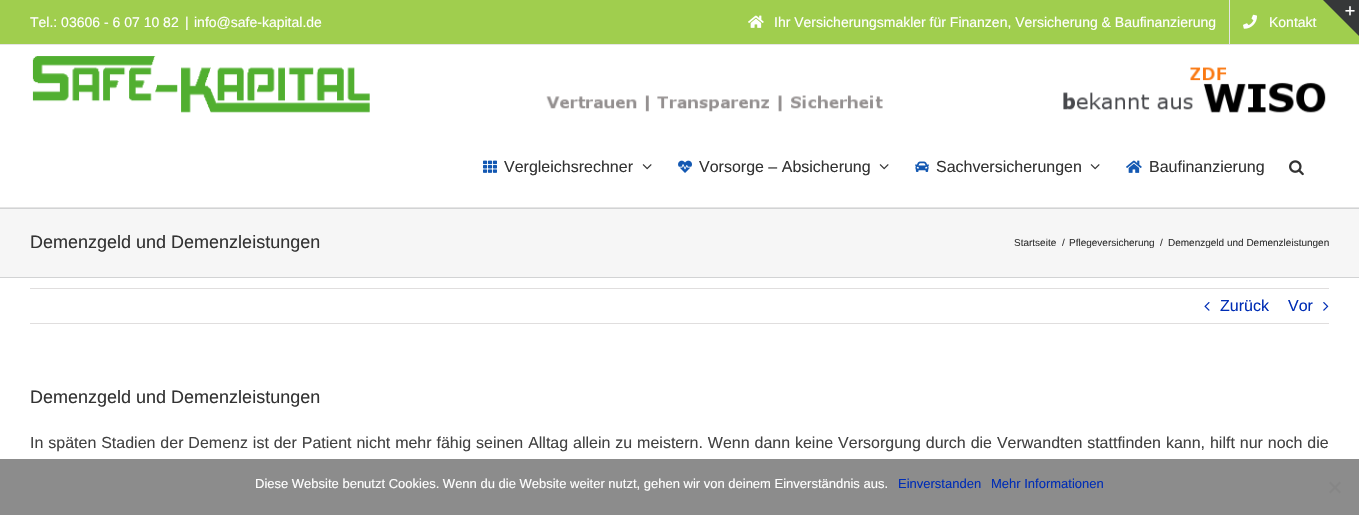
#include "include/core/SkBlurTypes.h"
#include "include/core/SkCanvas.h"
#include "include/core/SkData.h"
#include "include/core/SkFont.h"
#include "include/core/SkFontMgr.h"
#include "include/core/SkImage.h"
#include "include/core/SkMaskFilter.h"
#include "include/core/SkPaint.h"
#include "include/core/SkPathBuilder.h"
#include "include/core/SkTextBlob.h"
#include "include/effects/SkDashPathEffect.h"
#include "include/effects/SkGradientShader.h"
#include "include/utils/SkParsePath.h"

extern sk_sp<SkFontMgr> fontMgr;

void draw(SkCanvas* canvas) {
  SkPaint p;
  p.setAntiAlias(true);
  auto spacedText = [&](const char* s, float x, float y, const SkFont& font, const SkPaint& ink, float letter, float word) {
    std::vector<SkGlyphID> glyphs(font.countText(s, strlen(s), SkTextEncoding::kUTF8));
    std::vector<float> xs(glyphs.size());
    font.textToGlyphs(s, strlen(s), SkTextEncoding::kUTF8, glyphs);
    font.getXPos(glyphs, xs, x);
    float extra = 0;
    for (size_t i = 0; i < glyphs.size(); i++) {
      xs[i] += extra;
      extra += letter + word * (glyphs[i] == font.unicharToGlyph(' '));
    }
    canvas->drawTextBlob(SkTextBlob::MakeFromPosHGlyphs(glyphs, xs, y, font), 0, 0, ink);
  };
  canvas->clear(SK_ColorWHITE);
  p.setColor(SkColorSetRGB(160, 206, 78));
  canvas->drawRect(SkRect::MakeLTRB(0, 0, 1359, 44), p);
  p.setColor(SkColorSetRGB(229, 229, 229));
  canvas->drawRect(SkRect::MakeLTRB(0, 44, 1359, 45), p);
  canvas->drawImageRect(SkImages::DeferredFromEncodedData(SkData::MakeFromFileName("images/1.png")), SkRect::MakeLTRB(748, 15, 764, 28), SkSamplingOptions());
  canvas->drawRect(SkRect::MakeLTRB(1229, 0, 1230, 44), p);
  canvas->drawImageRect(SkImages::DeferredFromEncodedData(SkData::MakeFromFileName("images/2.png")), SkRect::MakeLTRB(1243, 14, 1257, 29), SkSamplingOptions());
  canvas->drawRect(SkRect::MakeLTRB(0, 207, 1359, 208), p);
  canvas->drawImageRect(SkImages::DeferredFromEncodedData(SkData::MakeFromFileName("images/3.png")), SkRect::MakeLTRB(32, 56, 1326, 113), SkSamplingOptions());
  canvas->drawImageRect(SkImages::DeferredFromEncodedData(SkData::MakeFromFileName("images/4.png")), SkRect::MakeLTRB(483, 160, 497, 173), SkSamplingOptions());
  canvas->drawImageRect(SkImages::DeferredFromEncodedData(SkData::MakeFromFileName("images/5.png")), SkRect::MakeLTRB(642, 164, 652, 170), SkSamplingOptions());
  canvas->drawImageRect(SkImages::DeferredFromEncodedData(SkData::MakeFromFileName("images/6.png")), SkRect::MakeLTRB(678, 160, 692, 173), SkSamplingOptions());
  canvas->drawImageRect(SkImages::DeferredFromEncodedData(SkData::MakeFromFileName("images/5.png")), SkRect::MakeLTRB(879, 164, 889, 170), SkSamplingOptions());
  canvas->drawImageRect(SkImages::DeferredFromEncodedData(SkData::MakeFromFileName("images/7.png")), SkRect::MakeLTRB(915, 161, 929, 172), SkSamplingOptions());
  canvas->drawImageRect(SkImages::DeferredFromEncodedData(SkData::MakeFromFileName("images/5.png")), SkRect::MakeLTRB(1090, 164, 1100, 170), SkSamplingOptions());
  canvas->drawImageRect(SkImages::DeferredFromEncodedData(SkData::MakeFromFileName("images/8.png")), SkRect::MakeLTRB(1126, 160, 1142, 173), SkSamplingOptions());
  canvas->drawImageRect(SkImages::DeferredFromEncodedData(SkData::MakeFromFileName("images/9.png")), SkRect::MakeLTRB(1289, 160, 1304, 176), SkSamplingOptions());
  p.setColor(SkColorSetRGB(54, 56, 57));
  canvas->drawPath(SkPathBuilder().moveTo(1323, 0).lineTo(1359, 0).lineTo(1359, 36).close().detach(), p);
  canvas->drawImageRect(SkImages::DeferredFromEncodedData(SkData::MakeFromFileName("images/10.png")), SkRect::MakeLTRB(1345, 6, 1355, 16), SkSamplingOptions());
  p.setColor(SkColorSetRGB(246, 246, 246));
  canvas->drawRect(SkRect::MakeLTRB(0, 209, 1359, 277), p);
  p.setColor(SkColorSetRGB(210, 211, 212));
  canvas->drawRect(SkRect::MakeLTRB(0, 208, 1359, 209), p);
  canvas->drawRect(SkRect::MakeLTRB(0, 277, 1359, 278), p);
  p.setColor(SkColorSetRGB(224, 222, 222));
  canvas->drawRect(SkRect::MakeLTRB(30, 288, 1329, 289), p);
  canvas->drawRect(SkRect::MakeLTRB(30, 323, 1329, 324), p);
  canvas->drawImageRect(SkImages::DeferredFromEncodedData(SkData::MakeFromFileName("images/11.png")), SkRect::MakeLTRB(1204, 302, 1210, 311), SkSamplingOptions());
  canvas->drawImageRect(SkImages::DeferredFromEncodedData(SkData::MakeFromFileName("images/12.png")), SkRect::MakeLTRB(1323, 302, 1329, 311), SkSamplingOptions());
  p.setColor(SkColorSetRGB(140, 140, 140));
  canvas->drawRect(SkRect::MakeLTRB(0, 459, 1359, 515), p);
  p.setColor(SkColorSetRGB(134, 134, 134));
  canvas->drawPath(SkPathBuilder().moveTo(1339.5f, 481.5f).lineTo(1341, 483).lineTo(1330.5f, 493.5f).lineTo(1329, 492).close().detach(), p);
  canvas->drawPath(SkPathBuilder().moveTo(1329, 483).lineTo(1330.5f, 481.5f).lineTo(1341, 492).lineTo(1339.5f, 493.5f).close().detach(), p);
  SkFont font1(fontMgr->matchFamilyStyle("Liberation Sans", SkFontStyle::Normal()), 14);
  font1.setSubpixel(true);
  p.setColor(SK_ColorWHITE);
  canvas->drawString("Tel.: 03606 - 6 07 10 82", 30, 27, font1, p);
  canvas->drawString("|", 185, 27, font1, p);
  canvas->drawString("info@safe-kapital.de", 194, 27, font1, p);
  canvas->drawString("Ihr Versicherungsmakler für Finanzen, Versicherung & Baufinanzierung", 774, 27, font1, p);
  canvas->drawString("Kontakt", 1269, 27, font1, p);
  SkFont font2(fontMgr->matchFamilyStyle("Liberation Sans", SkFontStyle::Normal()), 16);
  font2.setSubpixel(true);
  p.setColor(SkColorSetRGB(51, 51, 51));
  canvas->drawString("Vergleichsrechner", 504, 172, font2, p);
  canvas->drawString("Vorsorge – Absicherung", 699, 172, font2, p);
  canvas->drawString("Sachversicherungen", 936, 172, font2, p);
  canvas->drawString("Baufinanzierung", 1149, 172, font2, p);
  SkFont font3(fontMgr->matchFamilyStyle("Liberation Sans", SkFontStyle::Normal()), 18);
  font3.setSubpixel(true);
  canvas->drawString("Demenzgeld und Demenzleistungen", 30, 248, font3, p);
  SkFont font4(fontMgr->matchFamilyStyle("Liberation Sans", SkFontStyle::Normal()), 10);
  font4.setSubpixel(true);
  canvas->drawString("Startseite", 1014, 246, font4, p);
  canvas->drawString("/", 1062, 246, font4, p);
  canvas->drawString("Pflegeversicherung", 1069, 246, font4, p);
  canvas->drawString("/", 1160, 246, font4, p);
  canvas->drawString("Demenzgeld und Demenzleistungen", 1168, 246, font4, p);
  p.setColor(SkColorSetRGB(0, 45, 181));
  canvas->drawString("Zurück", 1220, 311, font2, p);
  canvas->drawString("Vor", 1288, 311, font2, p);
  p.setColor(SkColorSetRGB(51, 51, 51));
  canvas->drawString("Demenzgeld und Demenzleistungen", 30, 403, font3, p);
  p.setColor(SkColorSetRGB(66, 66, 66));
  spacedText("In späten Stadien der Demenz ist der Patient nicht mehr fähig seinen Alltag allein zu meistern. Wenn dann keine Versorgung durch die Verwandten stattfinden kann, hilft nur noch die", 30, 448, font2, p, 0, 0.45f);
  SkFont font5(fontMgr->matchFamilyStyle("Liberation Sans", SkFontStyle::Normal()), 13);
  font5.setSubpixel(true);
  p.setColor(SK_ColorWHITE);
  canvas->drawString("Diese Website benutzt Cookies. Wenn du die Website weiter nutzt, gehen wir von deinem Einverständnis aus.", 255, 488, font5, p);
  p.setColor(SkColorSetRGB(0, 45, 181));
  canvas->drawString("Einverstanden", 898, 488, font5, p);
  canvas->drawString("Mehr Informationen", 991, 488, font5, p);
}
